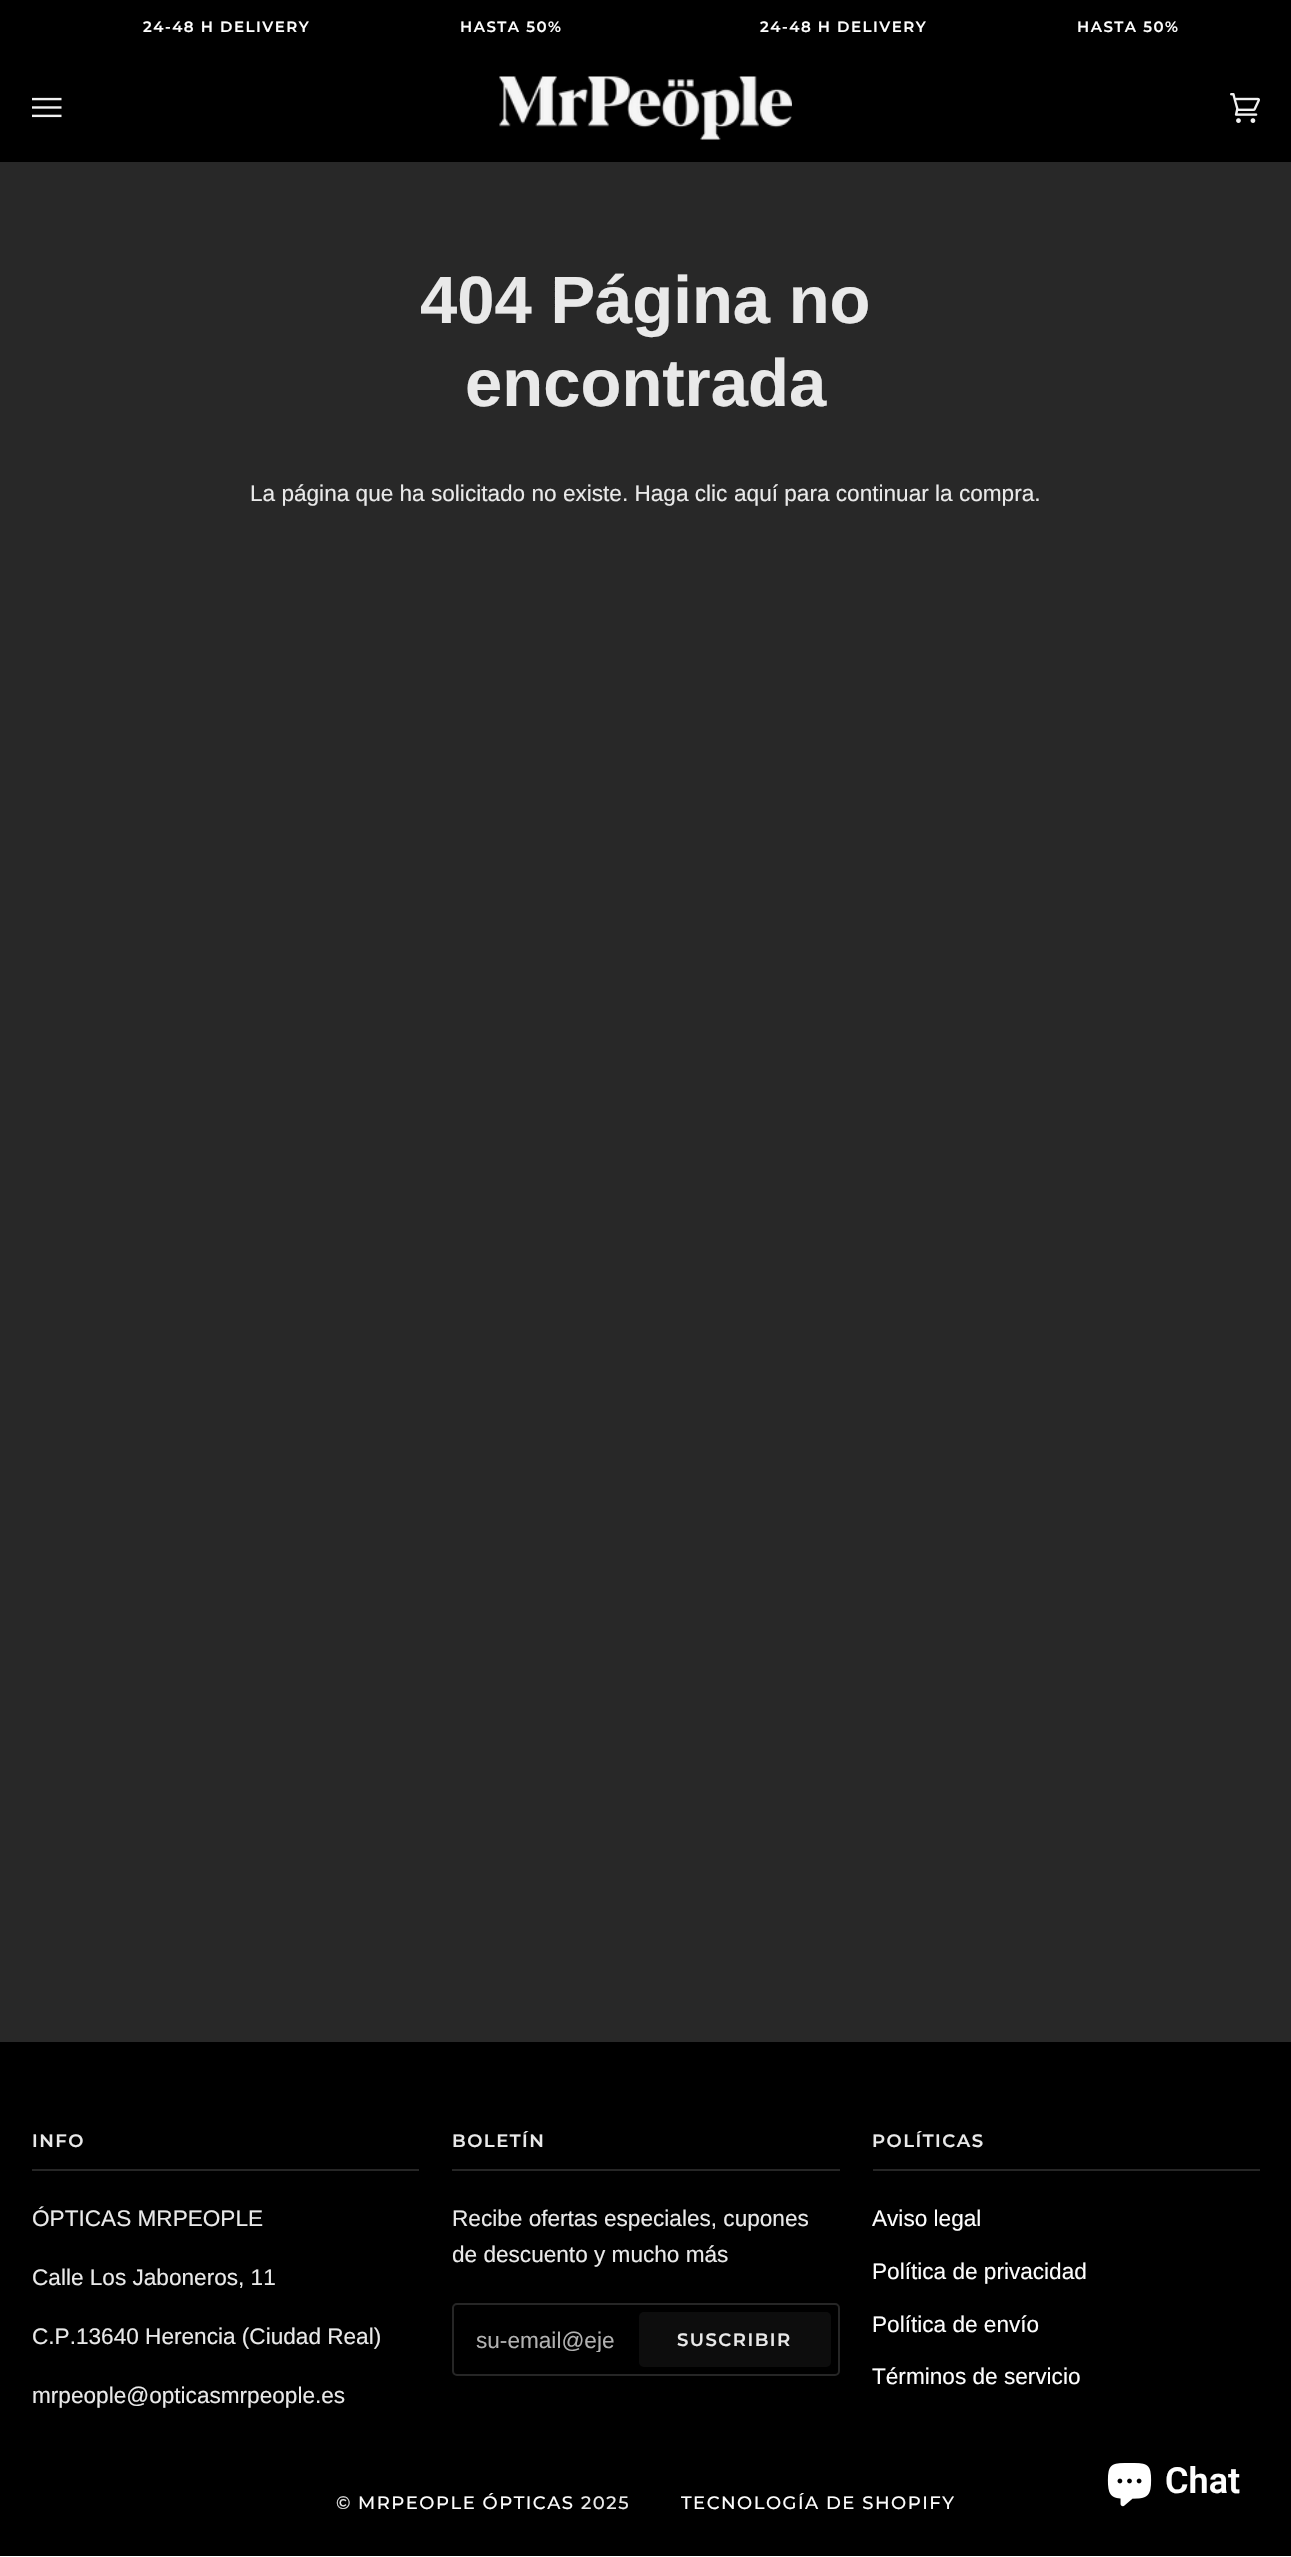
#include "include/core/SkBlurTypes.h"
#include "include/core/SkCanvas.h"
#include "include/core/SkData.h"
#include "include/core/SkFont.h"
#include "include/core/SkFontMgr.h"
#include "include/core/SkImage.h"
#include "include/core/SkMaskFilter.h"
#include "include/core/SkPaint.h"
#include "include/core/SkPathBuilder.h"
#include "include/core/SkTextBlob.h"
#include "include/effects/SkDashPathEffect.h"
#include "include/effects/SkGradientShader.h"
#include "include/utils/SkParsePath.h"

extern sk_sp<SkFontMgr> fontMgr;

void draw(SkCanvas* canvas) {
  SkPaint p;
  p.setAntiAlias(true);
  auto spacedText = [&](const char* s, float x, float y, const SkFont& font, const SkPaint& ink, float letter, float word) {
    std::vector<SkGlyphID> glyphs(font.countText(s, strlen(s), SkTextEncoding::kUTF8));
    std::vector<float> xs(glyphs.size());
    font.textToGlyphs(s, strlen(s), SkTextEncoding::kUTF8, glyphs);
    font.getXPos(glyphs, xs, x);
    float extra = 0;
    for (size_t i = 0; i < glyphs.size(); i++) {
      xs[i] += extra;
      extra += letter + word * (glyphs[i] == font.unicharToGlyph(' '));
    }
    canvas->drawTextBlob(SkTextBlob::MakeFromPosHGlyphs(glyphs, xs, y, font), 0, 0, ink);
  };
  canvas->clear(SK_ColorWHITE);
  p.setColor(SK_ColorBLACK);
  canvas->drawRect(SkRect::MakeLTRB(0, 0, 1291, 162), p);
  canvas->drawImageRect(SkImages::DeferredFromEncodedData(SkData::MakeFromFileName("images/1.png")), SkRect::MakeLTRB(32, 97, 62, 118), SkSamplingOptions());
  canvas->drawImageRect(SkImages::DeferredFromEncodedData(SkData::MakeFromFileName("images/2.png")), SkRect::MakeLTRB(499, 76, 792, 140), SkSamplingOptions());
  canvas->drawImageRect(SkImages::DeferredFromEncodedData(SkData::MakeFromFileName("images/3.png")), SkRect::MakeLTRB(1230, 93, 1260, 123), SkSamplingOptions());
  p.setColor(SkColorSetRGB(40, 40, 40));
  canvas->drawRect(SkRect::MakeLTRB(0, 162, 1291, 2042), p);
  p.setColor(SK_ColorBLACK);
  canvas->drawRect(SkRect::MakeLTRB(0, 2042, 1291, 2556), p);
  p.setColor(SkColorSetRGB(38, 38, 38));
  canvas->drawRect(SkRect::MakeLTRB(32, 2169, 419, 2171), p);
  canvas->drawRect(SkRect::MakeLTRB(452, 2169, 840, 2171), p);
  p.setStyle(SkPaint::kStroke_Style);
  p.setStrokeWidth(2);
  canvas->drawRoundRect(SkRect::MakeLTRB(453, 2304, 839, 2375), 4, 4, p);
  p.setStyle(SkPaint::kFill_Style);
  p.setColor(SkColorSetRGB(13, 13, 13));
  canvas->drawRoundRect(SkRect::MakeLTRB(639, 2312, 831, 2367), 5, 5, p);
  p.setColor(SkColorSetRGB(38, 38, 38));
  canvas->drawRect(SkRect::MakeLTRB(873, 2169, 1260, 2171), p);
  canvas->drawImageRect(SkImages::DeferredFromEncodedData(SkData::MakeFromFileName("images/4.png")), SkRect::MakeLTRB(1107, 2463, 1152, 2507), SkSamplingOptions());
  SkFont font1(fontMgr->matchFamilyStyle("Montserrat", SkFontStyle(600, SkFontStyle::kNormal_Width, SkFontStyle::kUpright_Slant)), 15);
  font1.setSubpixel(true);
  p.setColor(SkColorSetRGB(253, 253, 253));
  spacedText("24-48 H DELIVERY", 143, 32, font1, p, 1.5f, 0);
  spacedText("HASTA 50%", 460, 32, font1, p, 1.5f, 0);
  spacedText("24-48 H DELIVERY", 760, 32, font1, p, 1.5f, 0);
  spacedText("HASTA 50%", 1077, 32, font1, p, 1.5f, 0);
  SkFont font2(fontMgr->matchFamilyStyle("Arimo", SkFontStyle::Bold()), 67);
  font2.setSubpixel(true);
  p.setColor(SkColorSetRGB(233, 233, 233));
  canvas->drawString("404 Página no", 420, 323, font2, p);
  canvas->drawString("encontrada", 465, 406, font2, p);
  SkFont font3(fontMgr->matchFamilyStyle("Arimo", SkFontStyle::Normal()), 22.6f);
  font3.setSubpixel(true);
  canvas->drawString("La página que ha solicitado no existe. Haga clic", 250, 501, font3, p);
  canvas->drawString("aquí para continuar la compra.", 734, 501, font3, p);
  SkFont font4(fontMgr->matchFamilyStyle("Montserrat", SkFontStyle(600, SkFontStyle::kNormal_Width, SkFontStyle::kUpright_Slant)), 18);
  font4.setSubpixel(true);
  spacedText("INFO", 32, 2147, font4, p, 1.5f, 0);
  canvas->drawString("ÓPTICAS MRPEOPLE", 32, 2226, font3, p);
  canvas->drawString("Calle Los Jaboneros, 11", 32, 2285, font3, p);
  canvas->drawString("C.P.13640 Herencia (Ciudad Real)", 32, 2344, font3, p);
  canvas->drawString("mrpeople@opticasmrpeople.es", 32, 2403, font3, p);
  spacedText("BOLETÍN", 452, 2147, font4, p, 1.5f, 0);
  canvas->drawString("Recibe ofertas especiales, cupones", 452, 2226, font3, p);
  canvas->drawString("de descuento y mucho más", 452, 2262, font3, p);
  canvas->save();
  canvas->clipRect(SkRect::MakeLTRB(476, 2327, 624, 2352));
  p.setColor(SkColorSetRGB(177, 177, 177));
  canvas->drawString("su-email@eje", 476, 2348, font3, p);
  canvas->restore();
  p.setColor(SkColorSetRGB(233, 233, 233));
  spacedText("SUSCRIBIR", 677, 2346, font4, p, 1.5f, 0);
  spacedText("POLÍTICAS", 872, 2147, font4, p, 1.5f, 0);
  p.setColor(SkColorSetRGB(253, 253, 253));
  canvas->drawString("Aviso legal", 872, 2226, font3, p);
  canvas->drawString("Política de privacidad", 872, 2279, font3, p);
  canvas->drawString("Política de envío", 872, 2332, font3, p);
  canvas->drawString("Términos de servicio", 872, 2384, font3, p);
  SkFont font5(fontMgr->matchFamilyStyle("Montserrat", SkFontStyle(500, SkFontStyle::kNormal_Width, SkFontStyle::kUpright_Slant)), 18);
  font5.setSubpixel(true);
  p.setColor(SkColorSetRGB(233, 233, 233));
  spacedText("©", 336, 2509, font5, p, 1.5f, 0);
  p.setColor(SkColorSetRGB(253, 253, 253));
  spacedText("MRPEOPLE ÓPTICAS", 358, 2509, font5, p, 1.5f, 0);
  p.setColor(SkColorSetRGB(233, 233, 233));
  spacedText("2025", 581, 2509, font5, p, 1.5f, 0);
  p.setColor(SkColorSetRGB(253, 253, 253));
  spacedText("TECNOLOGÍA DE SHOPIFY", 681, 2509, font5, p, 1.5f, 0);
  SkFont font6(fontMgr->matchFamilyStyle("Roboto", SkFontStyle(600, SkFontStyle::kNormal_Width, SkFontStyle::kUpright_Slant)), 36);
  font6.setSubpixel(true);
  canvas->drawString("Chat", 1165, 2493, font6, p);
}
